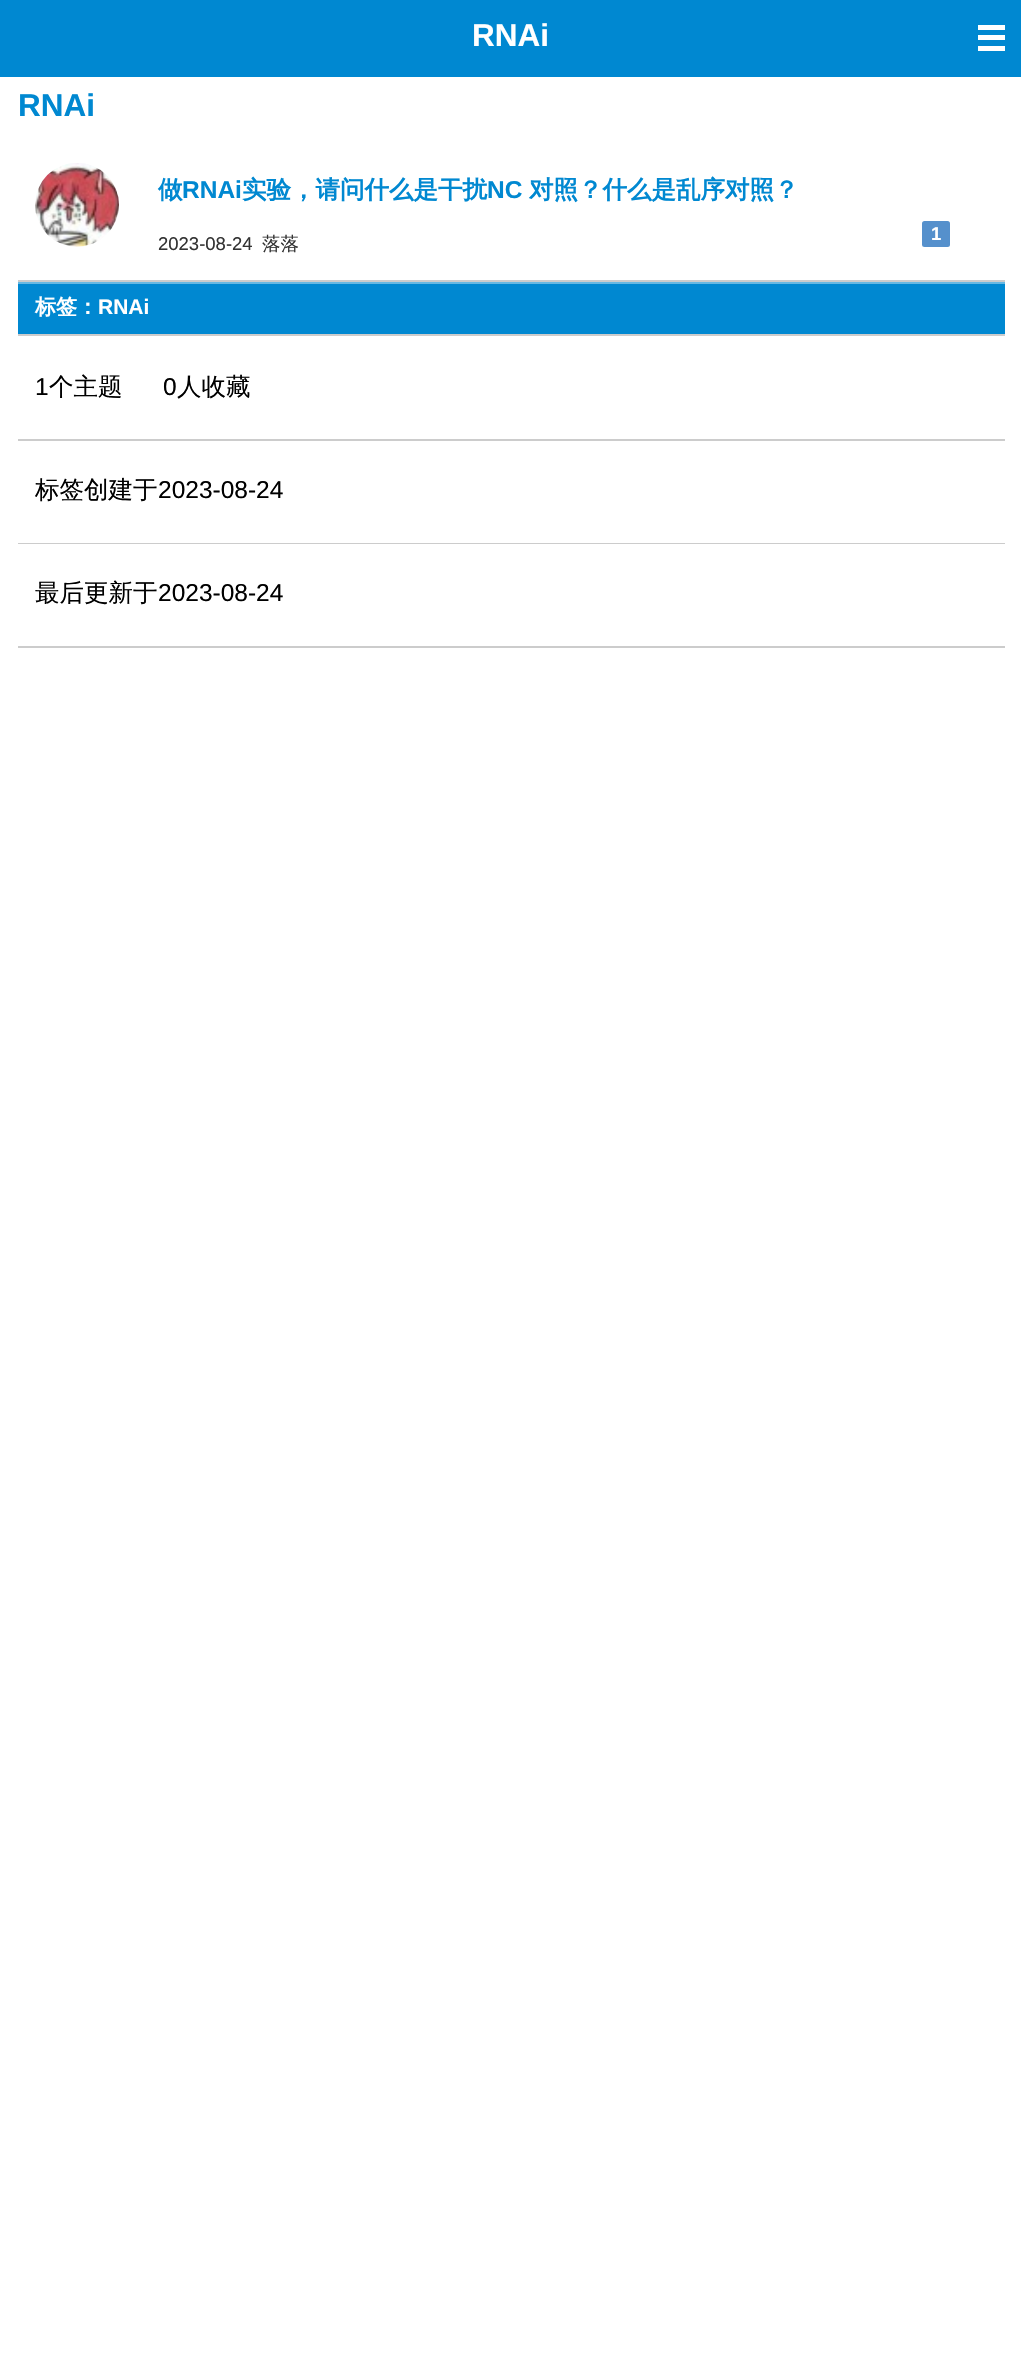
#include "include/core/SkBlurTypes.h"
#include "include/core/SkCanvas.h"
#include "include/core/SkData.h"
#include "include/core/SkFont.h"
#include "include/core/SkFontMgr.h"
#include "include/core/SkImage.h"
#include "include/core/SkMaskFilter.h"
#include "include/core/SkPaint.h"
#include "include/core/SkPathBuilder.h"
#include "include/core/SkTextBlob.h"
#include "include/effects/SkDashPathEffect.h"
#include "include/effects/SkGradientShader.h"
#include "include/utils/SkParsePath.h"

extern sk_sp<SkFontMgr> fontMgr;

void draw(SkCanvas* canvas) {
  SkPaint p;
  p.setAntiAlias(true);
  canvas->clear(SK_ColorWHITE);
  p.setColor(SkColorSetRGB(0, 136, 209));
  canvas->drawRect(SkRect::MakeLTRB(0, 0, 1021, 77), p);
  p.setColor(SK_ColorWHITE);
  canvas->drawRect(SkRect::MakeLTRB(978, 25, 1005, 30), p);
  canvas->drawRect(SkRect::MakeLTRB(978, 35, 1005, 40), p);
  canvas->drawRect(SkRect::MakeLTRB(978, 46, 1005, 51), p);
  canvas->drawImageRect(SkImages::DeferredFromEncodedData(SkData::MakeFromFileName("images/1.png")), SkRect::MakeLTRB(35, 163, 119, 247), SkSamplingOptions());
  p.setColor(SkColorSetRGB(85, 144, 204));
  canvas->drawRoundRect(SkRect::MakeLTRB(922, 221, 950, 247), 2.5f, 2.5f, p);
  p.setColor(SkColorSetRGB(0, 136, 209));
  canvas->drawRect(SkRect::MakeLTRB(18, 284, 1005, 334), p);
  p.setColor(SkColorSetRGB(102, 184, 227));
  canvas->drawRect(SkRect::MakeLTRB(18, 282, 1005, 284), p);
  p.setColor(SkColorSetRGB(204, 204, 204));
  canvas->drawRect(SkRect::MakeLTRB(18, 280, 1005, 282), p);
  canvas->drawRect(SkRect::MakeLTRB(18, 334, 1005, 336), p);
  canvas->drawRect(SkRect::MakeLTRB(18, 439, 1005, 441), p);
  canvas->drawRect(SkRect::MakeLTRB(18, 543, 1005, 544), p);
  canvas->drawRect(SkRect::MakeLTRB(18, 646, 1005, 648), p);
  SkFont font1(fontMgr->matchFamilyStyle("Liberation Sans", SkFontStyle::Bold()), 31.5f);
  font1.setSubpixel(true);
  p.setColor(SK_ColorWHITE);
  canvas->drawString("RNAi", 472, 46, font1, p);
  p.setColor(SkColorSetRGB(0, 136, 209));
  canvas->drawString("RNAi", 18, 116, font1, p);
  SkFont font2(fontMgr->matchFamilyStyle("WenQuanYi Zen Hei", SkFontStyle::Bold()), 24.5f);
  font2.setSubpixel(true);
  canvas->drawString("做", 158, 198, font2, p);
  SkFont font3(fontMgr->matchFamilyStyle("Liberation Sans", SkFontStyle::Bold()), 24.5f);
  font3.setSubpixel(true);
  canvas->drawString("RNAi", 182, 198, font3, p);
  canvas->drawString("实验，请问什么是干扰", 242, 198, font2, p);
  canvas->drawString("NC", 487, 198, font3, p);
  canvas->drawString("对照？什么是乱序对照？", 529, 198, font2, p);
  SkFont font4(fontMgr->matchFamilyStyle("Liberation Sans", SkFontStyle::Normal()), 18.5f);
  font4.setSubpixel(true);
  p.setColor(SkColorSetRGB(51, 51, 51));
  canvas->drawString("2023-08-24", 158, 250, font4, p);
  SkFont font5(fontMgr->matchFamilyStyle("WenQuanYi Zen Hei", SkFontStyle(500, SkFontStyle::kNormal_Width, SkFontStyle::kUpright_Slant)), 18.5f);
  font5.setSubpixel(true);
  canvas->drawString("落落", 262, 250, font5, p);
  SkFont font6(fontMgr->matchFamilyStyle("Liberation Sans", SkFontStyle::Bold()), 18.5f);
  font6.setSubpixel(true);
  p.setColor(SK_ColorWHITE);
  canvas->drawString("1", 931, 240, font6, p);
  SkFont font7(fontMgr->matchFamilyStyle("WenQuanYi Zen Hei", SkFontStyle::Bold()), 21);
  font7.setSubpixel(true);
  canvas->drawString("标签：", 35, 314, font7, p);
  SkFont font8(fontMgr->matchFamilyStyle("Liberation Sans", SkFontStyle::Bold()), 21);
  font8.setSubpixel(true);
  canvas->drawString("RNAi", 98, 314, font8, p);
  SkFont font9(fontMgr->matchFamilyStyle("Liberation Sans", SkFontStyle::Normal()), 24.5f);
  font9.setSubpixel(true);
  p.setColor(SK_ColorBLACK);
  canvas->drawString("1", 35, 395, font9, p);
  SkFont font10(fontMgr->matchFamilyStyle("WenQuanYi Zen Hei", SkFontStyle(500, SkFontStyle::kNormal_Width, SkFontStyle::kUpright_Slant)), 24.5f);
  font10.setSubpixel(true);
  canvas->drawString("个主题", 49, 395, font10, p);
  canvas->drawString("0", 163, 395, font9, p);
  canvas->drawString("人收藏", 177, 395, font10, p);
  canvas->drawString("标签创建于", 35, 498, font10, p);
  canvas->drawString("2023-08-24", 158, 498, font9, p);
  canvas->drawString("最后更新于", 35, 601, font10, p);
  canvas->drawString("2023-08-24", 158, 601, font9, p);
}
